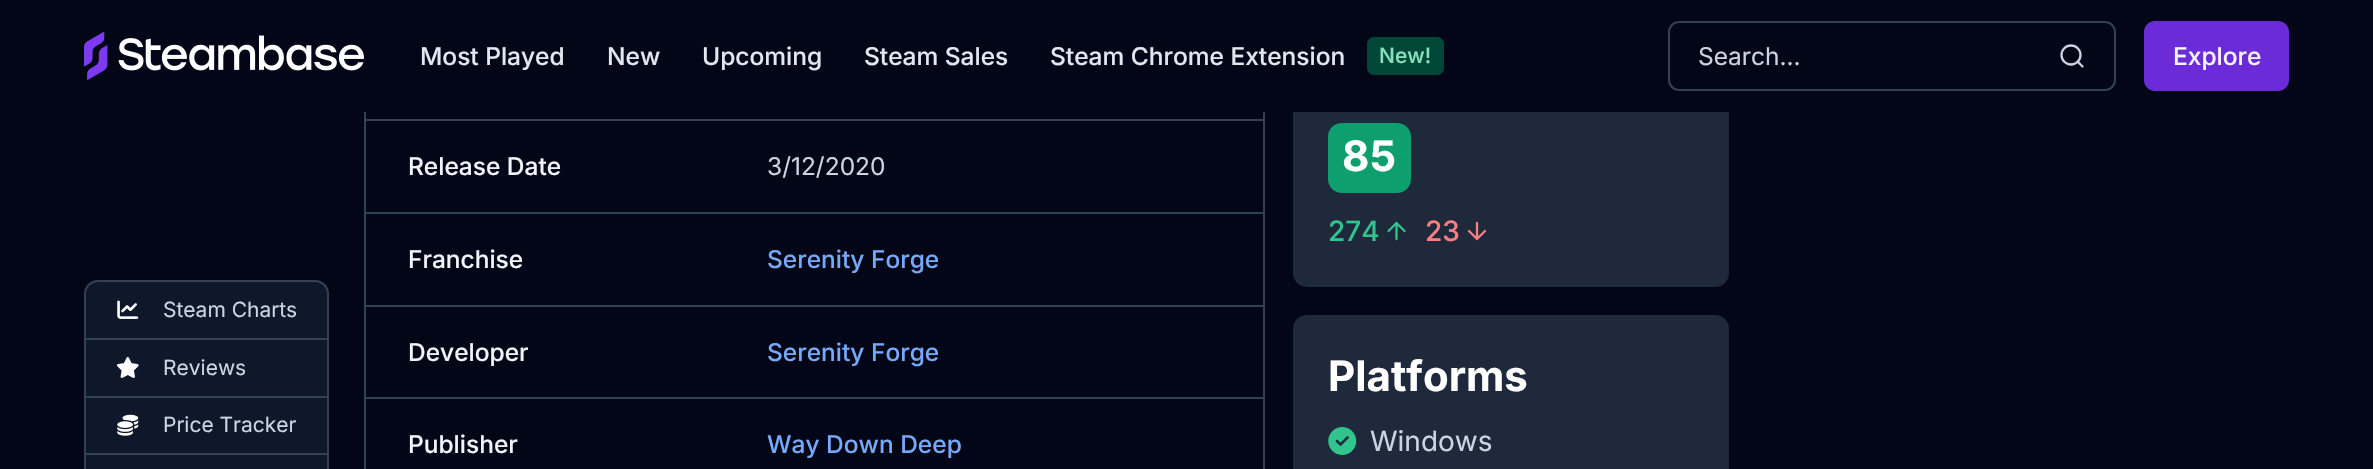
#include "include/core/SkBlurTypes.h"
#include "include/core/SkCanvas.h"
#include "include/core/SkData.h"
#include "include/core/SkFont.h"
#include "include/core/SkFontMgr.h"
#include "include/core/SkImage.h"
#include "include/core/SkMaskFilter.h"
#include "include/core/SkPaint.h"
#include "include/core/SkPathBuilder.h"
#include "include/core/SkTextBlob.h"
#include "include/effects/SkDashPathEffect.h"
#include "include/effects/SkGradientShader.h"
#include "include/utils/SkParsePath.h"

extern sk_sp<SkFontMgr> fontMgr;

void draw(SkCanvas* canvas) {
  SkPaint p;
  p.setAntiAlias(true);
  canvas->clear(SkColorSetRGB(2, 6, 23));
  p.setStyle(SkPaint::kStroke_Style);
  p.setStrokeWidth(2);
  p.setColor(SkColorSetRGB(51, 65, 85));
  canvas->drawRect(SkRect::MakeLTRB(365, 27, 1264, 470), p);
  p.setStyle(SkPaint::kFill_Style);
  p.setColor(SkColorSetRGB(30, 41, 59));
  canvas->drawRoundRect(SkRect::MakeLTRB(1293, 18, 1729, 287), 14, 14, p);
  p.setColor(SkColorSetRGB(2, 6, 23));
  canvas->drawRect(SkRect::MakeLTRB(364, 18, 1729, 112), p);
  canvas->drawImageRect(SkImages::DeferredFromEncodedData(SkData::MakeFromFileName("images/1.png")), SkRect::MakeLTRB(84, 32, 364, 81), SkSamplingOptions());
  p.setColor(SkColorSetRGB(1, 71, 55));
  canvas->drawRoundRect(SkRect::MakeLTRB(1368, 38, 1443, 74), 6, 6, p);
  p.setStyle(SkPaint::kStroke_Style);
  canvas->drawRoundRect(SkRect::MakeLTRB(1368, 38, 1443, 74), 6, 6, p);
  p.setColor(SkColorSetRGB(51, 65, 85));
  canvas->drawRoundRect(SkRect::MakeLTRB(1669, 22, 2115, 90), 10, 10, p);
  p.setStrokeWidth(2.3f);
  p.setColor(SkColorSetRGB(203, 213, 225));
  canvas->drawCircle(2071, 55, 9.5f, p);
  p.setStrokeCap(SkPaint::kRound_Cap);
  p.setStrokeJoin(SkPaint::kRound_Join);
  canvas->drawPath(SkPathBuilder().moveTo(2082.5f, 66.5f).lineTo(2077.5f, 61.5f).detach(), p);
  p.setStyle(SkPaint::kFill_Style);
  p.setColor(SkColorSetRGB(108, 43, 217));
  canvas->drawRoundRect(SkRect::MakeLTRB(2144, 21, 2289, 91), 11, 11, p);
  p.setColor(SkColorSetRGB(15, 23, 42));
  canvas->drawRoundRect(SkRect::MakeLTRB(85, 281, 328, 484), 13, 13, p);
  p.setStyle(SkPaint::kStroke_Style);
  p.setStrokeWidth(2);
  p.setStrokeCap(SkPaint::kButt_Cap);
  p.setStrokeJoin(SkPaint::kMiter_Join);
  p.setColor(SkColorSetRGB(51, 65, 85));
  canvas->drawRoundRect(SkRect::MakeLTRB(85, 281, 328, 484), 13, 13, p);
  canvas->drawImageRect(SkImages::DeferredFromEncodedData(SkData::MakeFromFileName("images/2.png")), SkRect::MakeLTRB(117, 300, 139, 319), SkSamplingOptions());
  p.setStyle(SkPaint::kFill_Style);
  canvas->drawRect(SkRect::MakeLTRB(86, 338, 327, 340), p);
  canvas->drawImageRect(SkImages::DeferredFromEncodedData(SkData::MakeFromFileName("images/3.png")), SkRect::MakeLTRB(117, 357, 139, 378), SkSamplingOptions());
  canvas->drawRect(SkRect::MakeLTRB(86, 396, 327, 398), p);
  canvas->drawImageRect(SkImages::DeferredFromEncodedData(SkData::MakeFromFileName("images/4.png")), SkRect::MakeLTRB(117, 414, 139, 436), SkSamplingOptions());
  canvas->drawRect(SkRect::MakeLTRB(86, 453, 327, 455), p);
  canvas->drawRect(SkRect::MakeLTRB(366, 119, 1264, 121), p);
  canvas->drawRect(SkRect::MakeLTRB(366, 212, 1264, 214), p);
  canvas->drawRect(SkRect::MakeLTRB(366, 305, 1264, 307), p);
  canvas->drawRect(SkRect::MakeLTRB(366, 397, 1264, 399), p);
  p.setColor(SkColorSetRGB(14, 159, 110));
  canvas->drawRoundRect(SkRect::MakeLTRB(1328, 123, 1411, 193), 14, 14, p);
  p.setStyle(SkPaint::kStroke_Style);
  p.setStrokeWidth(2.3f);
  p.setStrokeCap(SkPaint::kRound_Cap);
  p.setStrokeJoin(SkPaint::kRound_Join);
  p.setColor(SkColorSetRGB(49, 196, 141));
  canvas->drawPath(SkPathBuilder().moveTo(1388.5f, 231).lineTo(1396.5f, 223).lineTo(1404.5f, 231).moveTo(1396.5f, 239).lineTo(1396.5f, 223).detach(), p);
  p.setColor(SkColorSetRGB(249, 128, 128));
  canvas->drawPath(SkPathBuilder().moveTo(1477, 223).lineTo(1477, 239).moveTo(1485, 231).lineTo(1477, 239).lineTo(1469, 231).detach(), p);
  p.setStyle(SkPaint::kFill_Style);
  p.setColor(SkColorSetRGB(30, 41, 59));
  canvas->drawRoundRect(SkRect::MakeLTRB(1293, 315, 1729, 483), 14, 14, p);
  canvas->drawImageRect(SkImages::DeferredFromEncodedData(SkData::MakeFromFileName("images/5.png")), SkRect::MakeLTRB(1328, 427, 1357, 455), SkSamplingOptions());
  SkFont font1(fontMgr->matchFamilyStyle("Inter", SkFontStyle(500, SkFontStyle::kNormal_Width, SkFontStyle::kUpright_Slant)), 24.5f);
  font1.setSubpixel(true);
  p.setColor(SkColorSetRGB(226, 232, 240));
  canvas->drawString("Most Played", 420, 65, font1, p);
  canvas->drawString("New", 607, 65, font1, p);
  canvas->drawString("Upcoming", 702, 65, font1, p);
  canvas->drawString("Steam Sales", 864, 65, font1, p);
  canvas->drawString("Steam Chrome Extension", 1050, 65, font1, p);
  SkFont font2(fontMgr->matchFamilyStyle("Inter", SkFontStyle(500, SkFontStyle::kNormal_Width, SkFontStyle::kUpright_Slant)), 21);
  font2.setSubpixel(true);
  p.setColor(SkColorSetRGB(132, 225, 188));
  canvas->drawString("New!", 1379, 63, font2, p);
  SkFont font3(fontMgr->matchFamilyStyle("Inter", SkFontStyle::Normal()), 24.5f);
  font3.setSubpixel(true);
  p.setColor(SkColorSetRGB(203, 213, 225));
  canvas->drawString("Search...", 1698, 65, font3, p);
  p.setColor(SkColorSetRGB(246, 245, 255));
  canvas->drawString("Explore", 2173, 65, font1, p);
  SkFont font4(fontMgr->matchFamilyStyle("Inter", SkFontStyle::Normal()), 21);
  font4.setSubpixel(true);
  p.setColor(SkColorSetRGB(203, 213, 225));
  canvas->drawString("Steam Charts", 163, 317, font4, p);
  canvas->drawString("Reviews", 163, 375, font4, p);
  canvas->drawString("Price Tracker", 163, 432, font4, p);
  p.setColor(SkColorSetRGB(241, 245, 249));
  canvas->drawString("Release Date", 408, 175, font1, p);
  p.setColor(SkColorSetRGB(203, 213, 225));
  canvas->drawString("3/12/2020", 767, 175, font3, p);
  p.setColor(SkColorSetRGB(241, 245, 249));
  canvas->drawString("Franchise", 408, 268, font1, p);
  p.setColor(SkColorSetRGB(118, 169, 250));
  canvas->drawString("Serenity Forge", 767, 268, font1, p);
  p.setColor(SkColorSetRGB(241, 245, 249));
  canvas->drawString("Developer", 408, 361, font1, p);
  p.setColor(SkColorSetRGB(118, 169, 250));
  canvas->drawString("Serenity Forge", 767, 361, font1, p);
  p.setColor(SkColorSetRGB(241, 245, 249));
  canvas->drawString("Publisher", 408, 453, font1, p);
  p.setColor(SkColorSetRGB(118, 169, 250));
  canvas->drawString("Way Down Deep", 767, 453, font1, p);
  SkFont font5(fontMgr->matchFamilyStyle("Inter", SkFontStyle::Bold()), 42);
  font5.setSubpixel(true);
  p.setColor(SK_ColorWHITE);
  canvas->drawString("85", 1342, 171, font5, p);
  SkFont font6(fontMgr->matchFamilyStyle("Inter", SkFontStyle(500, SkFontStyle::kNormal_Width, SkFontStyle::kUpright_Slant)), 28);
  font6.setSubpixel(true);
  p.setColor(SkColorSetRGB(49, 196, 141));
  canvas->drawString("274", 1328, 241, font6, p);
  p.setColor(SkColorSetRGB(249, 128, 128));
  canvas->drawString("23", 1425, 241, font6, p);
  p.setColor(SK_ColorWHITE);
  canvas->drawString("Platforms", 1328, 391, font5, p);
  SkFont font7(fontMgr->matchFamilyStyle("Inter", SkFontStyle::Normal()), 28);
  font7.setSubpixel(true);
  p.setColor(SkColorSetRGB(203, 213, 225));
  canvas->drawString("Windows", 1370, 451, font7, p);
}
